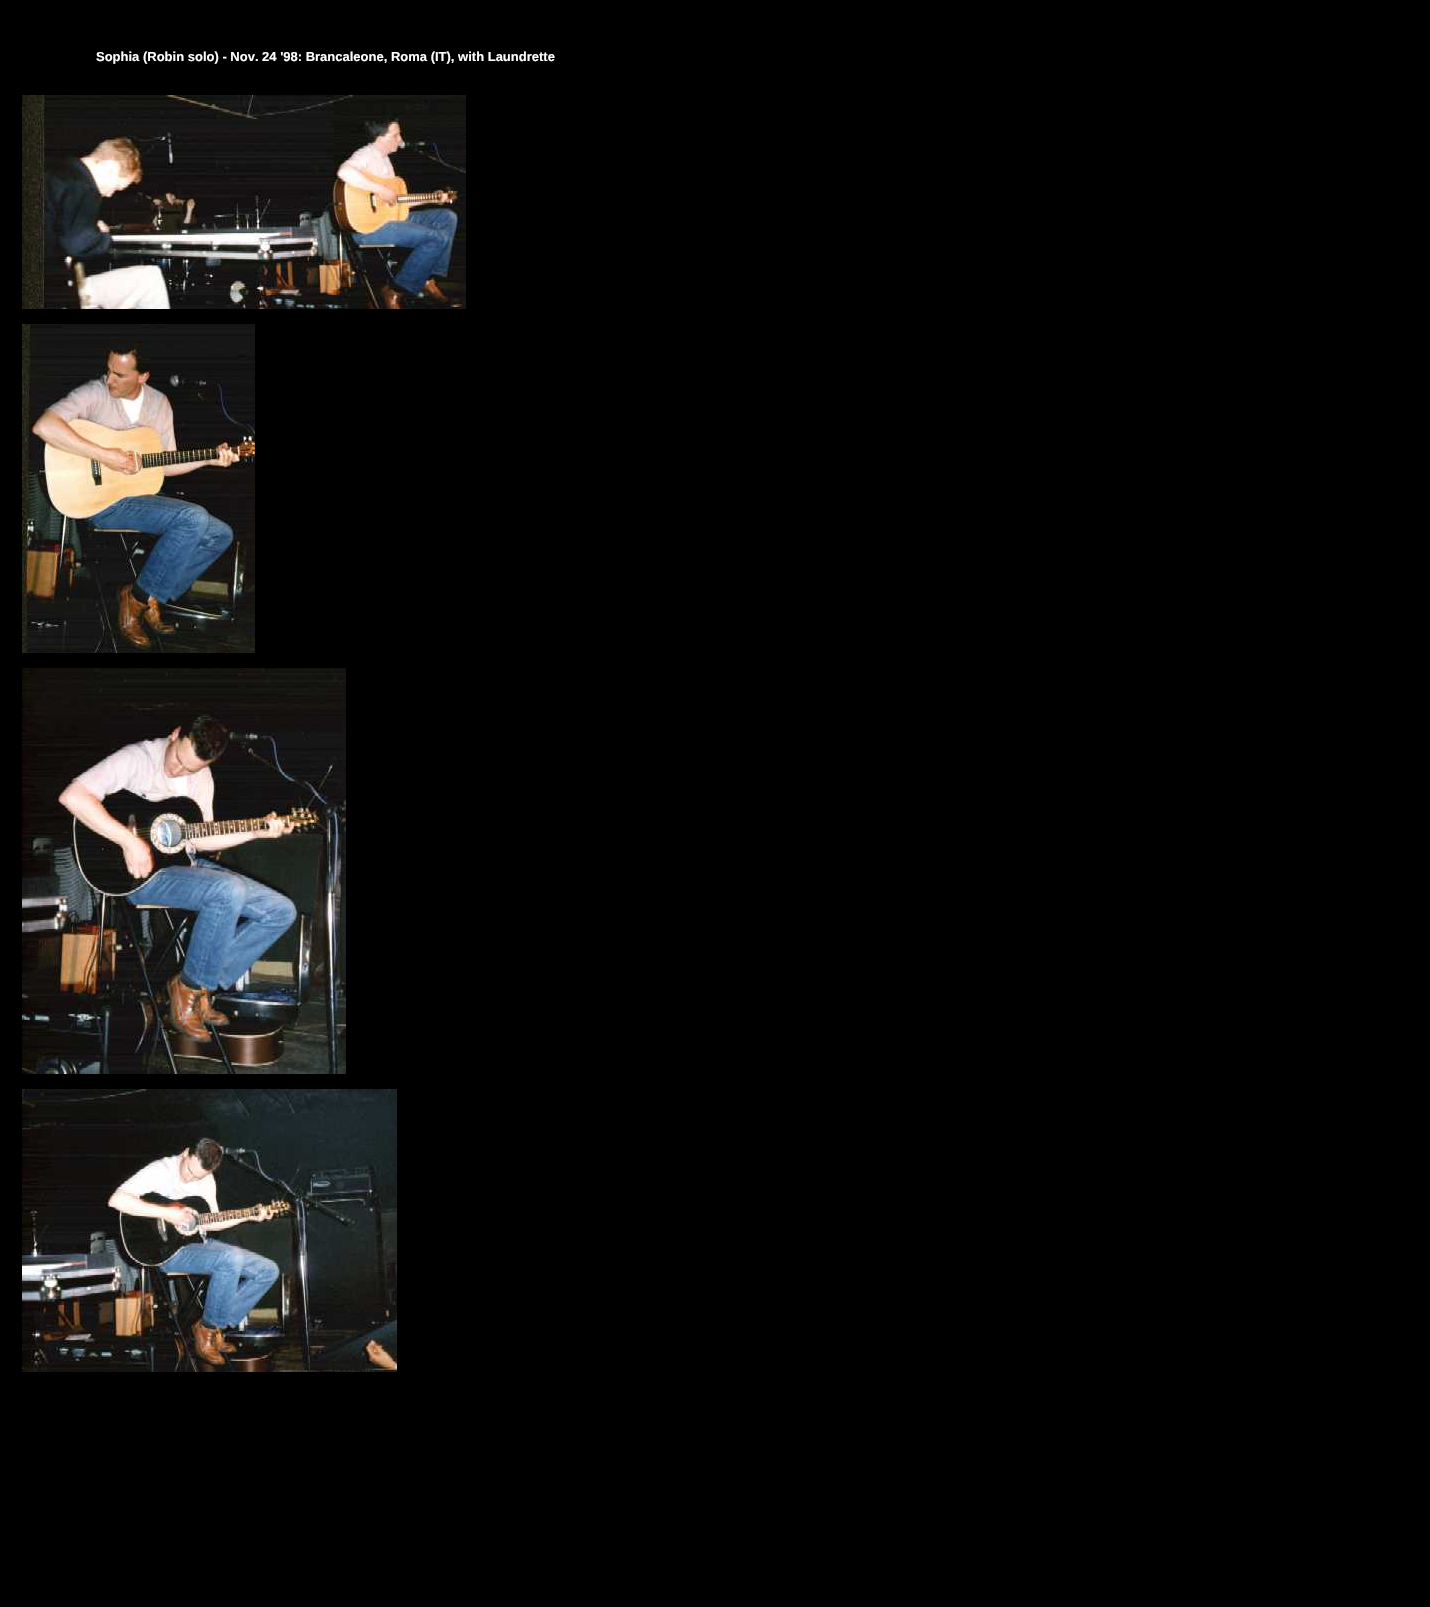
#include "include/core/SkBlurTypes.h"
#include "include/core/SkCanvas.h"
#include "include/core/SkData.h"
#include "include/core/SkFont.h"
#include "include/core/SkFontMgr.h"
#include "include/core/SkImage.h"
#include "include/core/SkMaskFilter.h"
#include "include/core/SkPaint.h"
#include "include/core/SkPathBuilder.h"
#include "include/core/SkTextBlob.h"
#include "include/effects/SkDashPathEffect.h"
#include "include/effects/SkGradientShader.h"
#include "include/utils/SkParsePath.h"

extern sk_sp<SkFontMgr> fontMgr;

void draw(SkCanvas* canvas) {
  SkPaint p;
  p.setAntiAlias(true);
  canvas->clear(SK_ColorBLACK);
  canvas->drawImageRect(SkImages::DeferredFromEncodedData(SkData::MakeFromFileName("images/1.png")), SkRect::MakeLTRB(22, 95, 466, 309), SkSamplingOptions());
  canvas->drawImageRect(SkImages::DeferredFromEncodedData(SkData::MakeFromFileName("images/2.png")), SkRect::MakeLTRB(22, 324, 255, 653), SkSamplingOptions());
  canvas->drawImageRect(SkImages::DeferredFromEncodedData(SkData::MakeFromFileName("images/3.png")), SkRect::MakeLTRB(22, 668, 346, 1074), SkSamplingOptions());
  canvas->drawImageRect(SkImages::DeferredFromEncodedData(SkData::MakeFromFileName("images/4.png")), SkRect::MakeLTRB(22, 1089, 397, 1372), SkSamplingOptions());
  SkFont font1(fontMgr->matchFamilyStyle("Liberation Sans", SkFontStyle::Bold()), 13);
  font1.setSubpixel(true);
  p.setColor(SK_ColorWHITE);
  canvas->drawString("Sophia (Robin solo) - Nov. 24 '98: Brancaleone, Roma (IT), with Laundrette", 96, 61, font1, p);
}
